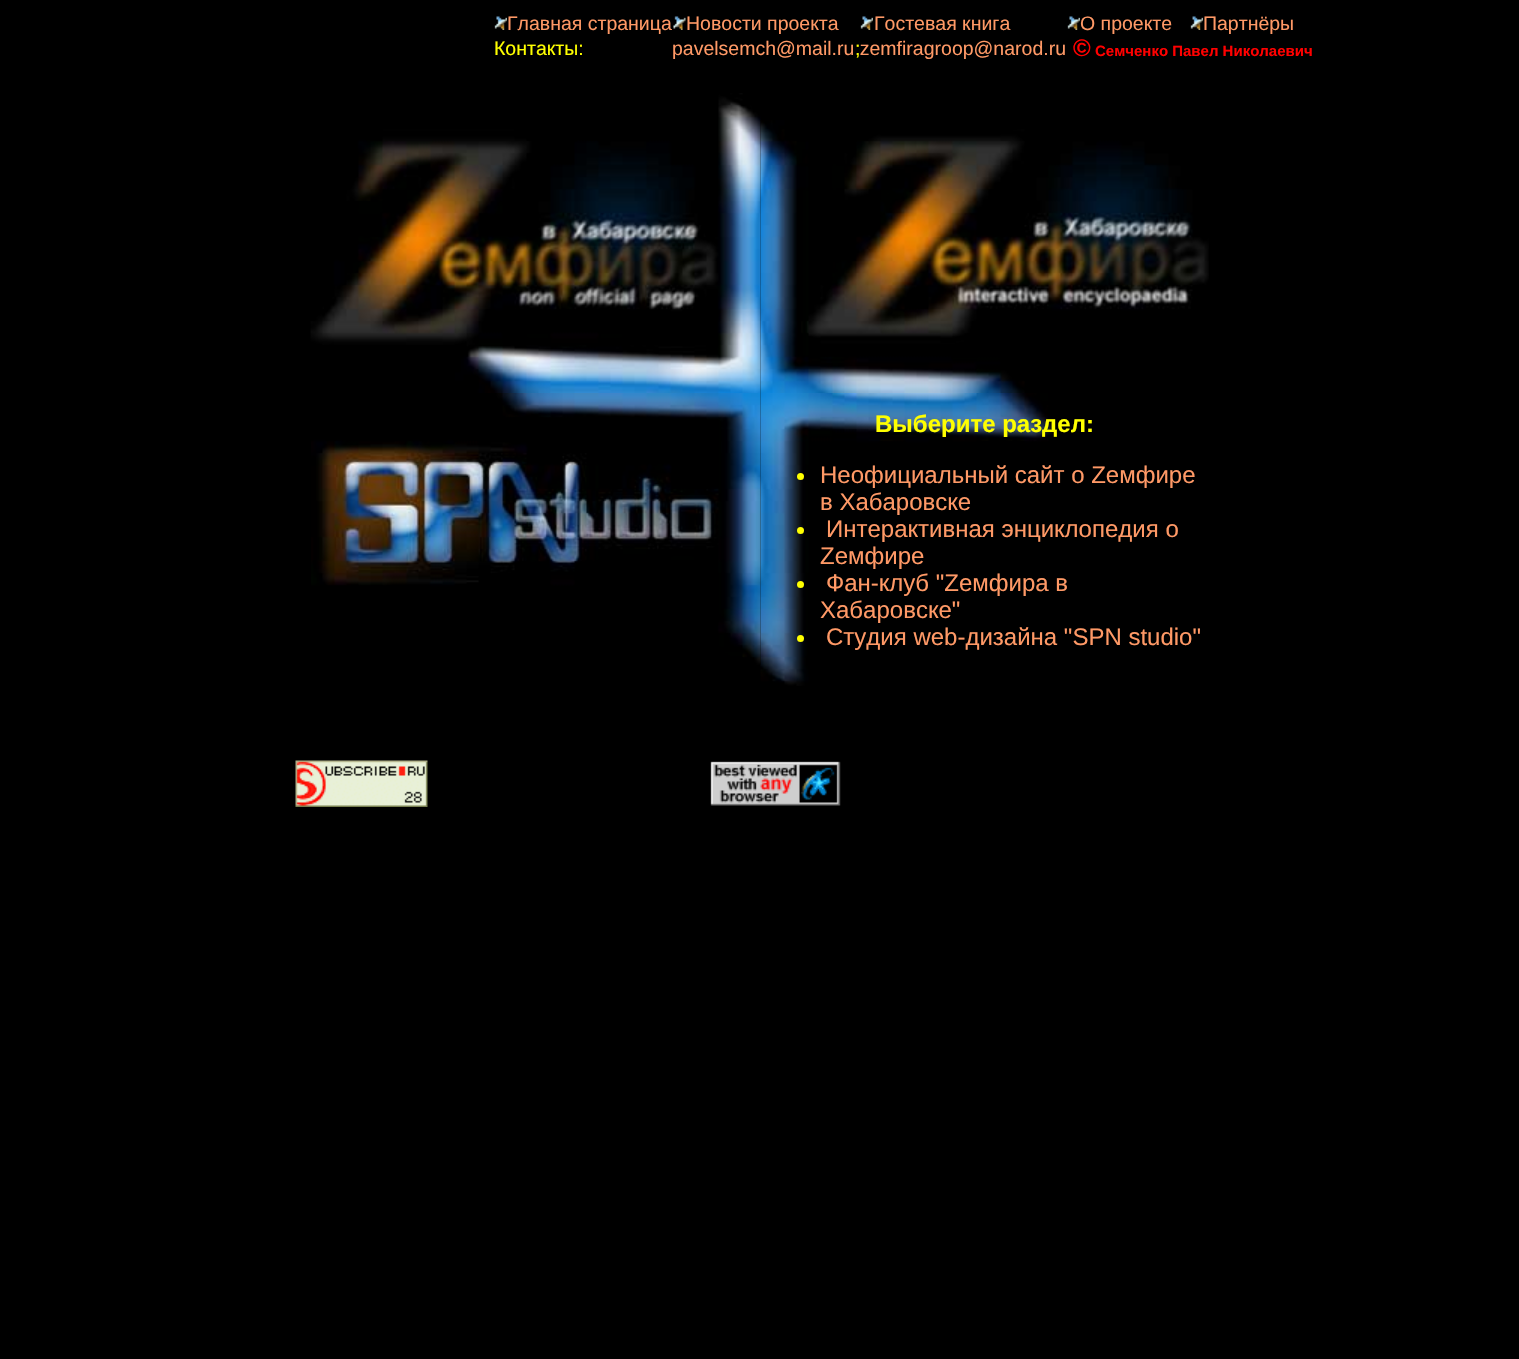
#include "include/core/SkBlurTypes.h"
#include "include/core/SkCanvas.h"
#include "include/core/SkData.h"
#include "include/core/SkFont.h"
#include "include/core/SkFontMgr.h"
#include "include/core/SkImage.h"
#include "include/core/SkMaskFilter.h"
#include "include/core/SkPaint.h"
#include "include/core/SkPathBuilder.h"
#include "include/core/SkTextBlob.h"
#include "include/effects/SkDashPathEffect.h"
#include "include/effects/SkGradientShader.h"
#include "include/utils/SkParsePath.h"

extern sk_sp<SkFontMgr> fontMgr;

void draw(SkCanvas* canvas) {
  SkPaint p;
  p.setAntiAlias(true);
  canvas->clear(SK_ColorBLACK);
  canvas->drawImageRect(SkImages::DeferredFromEncodedData(SkData::MakeFromFileName("images/1.png")), SkRect::MakeLTRB(494, 16, 507, 30), SkSamplingOptions());
  canvas->drawImageRect(SkImages::DeferredFromEncodedData(SkData::MakeFromFileName("images/2.png")), SkRect::MakeLTRB(673, 16, 686, 30), SkSamplingOptions());
  canvas->drawImageRect(SkImages::DeferredFromEncodedData(SkData::MakeFromFileName("images/1.png")), SkRect::MakeLTRB(860, 16, 873, 30), SkSamplingOptions());
  canvas->drawImageRect(SkImages::DeferredFromEncodedData(SkData::MakeFromFileName("images/1.png")), SkRect::MakeLTRB(1067, 16, 1080, 30), SkSamplingOptions());
  canvas->drawImageRect(SkImages::DeferredFromEncodedData(SkData::MakeFromFileName("images/3.png")), SkRect::MakeLTRB(1190, 16, 1203, 30), SkSamplingOptions());
  canvas->drawImageRect(SkImages::DeferredFromEncodedData(SkData::MakeFromFileName("images/4.png")), SkRect::MakeLTRB(310, 93, 761, 393), SkSamplingOptions());
  canvas->drawImageRect(SkImages::DeferredFromEncodedData(SkData::MakeFromFileName("images/5.png")), SkRect::MakeLTRB(760, 120, 1209, 393), SkSamplingOptions());
  canvas->drawImageRect(SkImages::DeferredFromEncodedData(SkData::MakeFromFileName("images/7.png")), SkRect::MakeLTRB(760, 393, 1054, 686), SkSamplingOptions());
  canvas->drawImageRect(SkImages::DeferredFromEncodedData(SkData::MakeFromFileName("images/6.png")), SkRect::MakeLTRB(311, 393, 761, 665), SkSamplingOptions());
  p.setColor(SkColorSetRGB(255, 255, 0));
  canvas->drawCircle(800.5f, 476.5f, 3.5f, p);
  canvas->drawCircle(800.5f, 530.5f, 3.5f, p);
  canvas->drawCircle(800.5f, 584.5f, 3.5f, p);
  canvas->drawCircle(800.5f, 638.5f, 3.5f, p);
  canvas->drawImageRect(SkImages::DeferredFromEncodedData(SkData::MakeFromFileName("images/8.png")), SkRect::MakeLTRB(295, 760, 428, 807), SkSamplingOptions());
  canvas->drawImageRect(SkImages::DeferredFromEncodedData(SkData::MakeFromFileName("images/9.png")), SkRect::MakeLTRB(710, 761, 841, 806), SkSamplingOptions());
  SkFont font1(fontMgr->matchFamilyStyle("Liberation Sans", SkFontStyle::Normal()), 19.5f);
  font1.setSubpixel(true);
  p.setColor(SkColorSetRGB(255, 153, 102));
  canvas->drawString("Главная страница", 507, 30, font1, p);
  canvas->drawString("Новости проекта", 686, 30, font1, p);
  canvas->drawString("Гостевая книга", 874, 30, font1, p);
  canvas->drawString("О проекте", 1080, 30, font1, p);
  canvas->drawString("Партнёры", 1203, 30, font1, p);
  p.setColor(SkColorSetRGB(255, 255, 0));
  canvas->drawString("Контакты:", 494, 55, font1, p);
  p.setColor(SkColorSetRGB(255, 153, 102));
  canvas->drawString("pavelsemch@mail.ru zemfiragroop@narod.ru", 672, 55, font1, p);
  SkFont font2(fontMgr->matchFamilyStyle("Liberation Sans", SkFontStyle::Bold()), 24);
  font2.setSubpixel(true);
  p.setColor(SkColorSetRGB(255, 0, 0));
  canvas->drawString("©", 1073, 56, font2, p);
  SkFont font3(fontMgr->matchFamilyStyle("Liberation Sans", SkFontStyle::Bold()), 15);
  font3.setSubpixel(true);
  canvas->drawString("Семченко Павел Николаевич", 1095, 56, font3, p);
  p.setColor(SkColorSetRGB(255, 255, 0));
  canvas->drawString(";", 855, 55, font1, p);
  canvas->drawString("Выберите раздел:", 875, 432, font2, p);
  SkFont font4(fontMgr->matchFamilyStyle("Liberation Sans", SkFontStyle::Normal()), 24);
  font4.setSubpixel(true);
  p.setColor(SkColorSetRGB(255, 153, 102));
  canvas->drawString("Неофициальный сайт о Zемфире", 820, 483, font4, p);
  canvas->drawString("в Хабаровске", 820, 510, font4, p);
  canvas->drawString("Интерактивная энциклопедия о", 826, 537, font4, p);
  canvas->drawString("Zемфире", 820, 564, font4, p);
  canvas->drawString("Фан-клуб \"Zемфира в", 826, 591, font4, p);
  canvas->drawString("Хабаровске\"", 820, 618, font4, p);
  canvas->drawString("Студия web-дизайна \"SPN studio\"", 826, 645, font4, p);
}
